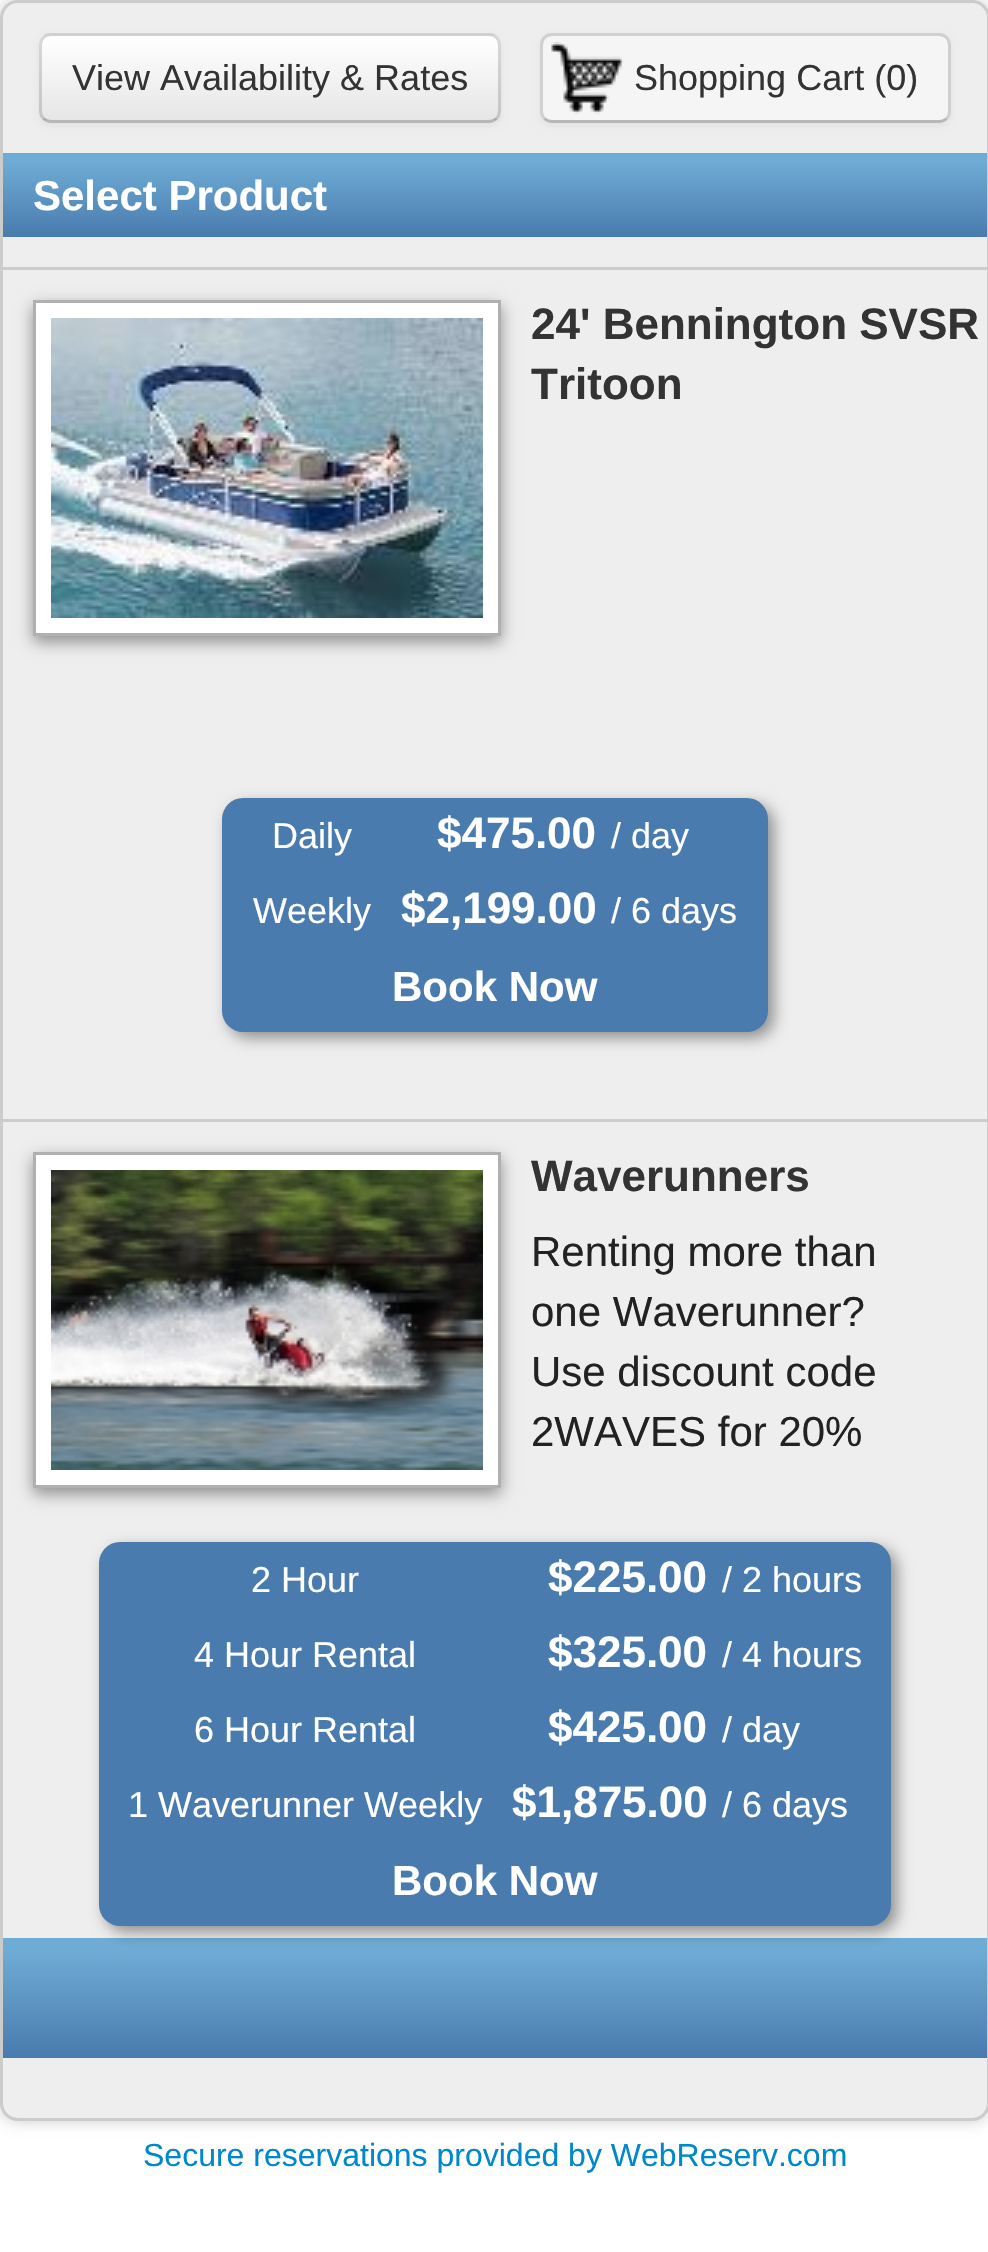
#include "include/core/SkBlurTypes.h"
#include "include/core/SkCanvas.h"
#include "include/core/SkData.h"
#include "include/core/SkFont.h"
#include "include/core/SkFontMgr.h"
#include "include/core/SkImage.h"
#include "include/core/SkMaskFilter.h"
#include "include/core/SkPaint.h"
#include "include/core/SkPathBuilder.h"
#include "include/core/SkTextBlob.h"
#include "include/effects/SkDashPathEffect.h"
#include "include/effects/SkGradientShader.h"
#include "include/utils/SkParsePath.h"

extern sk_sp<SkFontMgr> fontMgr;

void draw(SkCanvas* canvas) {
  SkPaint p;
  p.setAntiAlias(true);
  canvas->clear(SK_ColorWHITE);
  p.setColor(SkColorSetRGB(204, 204, 204));
  p.setMaskFilter(SkMaskFilter::MakeBlur(kNormal_SkBlurStyle, 7.5f));
  canvas->drawRoundRect(SkRect::MakeLTRB(0, 0, 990, 2121), 18, 18, p);
  p.setMaskFilter(nullptr);
  p.setColor(SkColorSetRGB(238, 238, 238));
  canvas->drawRoundRect(SkRect::MakeLTRB(1.5f, 1.5f, 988.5f, 2119.5f), 16.5f, 16.5f, p);
  p.setStyle(SkPaint::kStroke_Style);
  p.setStrokeWidth(3);
  p.setColor(SkColorSetRGB(204, 204, 204));
  canvas->drawRoundRect(SkRect::MakeLTRB(1.5f, 1.5f, 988.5f, 2119.5f), 16.5f, 16.5f, p);
  p.setStyle(SkPaint::kFill_Style);
  p.setColor(SkColorSetARGB(13, 0, 0, 0));
  p.setMaskFilter(SkMaskFilter::MakeBlur(kNormal_SkBlurStyle, 3));
  canvas->drawRoundRect(SkRect::MakeLTRB(39, 36, 501, 126), 12, 12, p);
  p.setMaskFilter(nullptr);
  p.setColor(SkColorSetRGB(245, 245, 245));
  canvas->drawRoundRect(SkRect::MakeLTRB(39, 33, 501, 123), 12, 12, p);
  canvas->save();
  canvas->clipPath(SkPathBuilder().moveTo(51, 33).lineTo(489, 33).cubicTo(495.5f, 33, 501, 38.5f, 501, 45).lineTo(501, 111).cubicTo(501, 117.5f, 495.5f, 123, 489, 123).lineTo(51, 123).cubicTo(44.5f, 123, 39, 117.5f, 39, 111).lineTo(39, 45).cubicTo(39, 38.5f, 44.5f, 33, 51, 33).close().detach(), true);
  {
    const SkColor colors[] = {SK_ColorWHITE, SkColorSetRGB(230, 230, 230)};
    const float stops[] = {0, 1};
    const SkPoint ends[] = {{270, 36}, {270, 120}};
    p.setShader(SkGradientShader::MakeLinear(ends, colors, stops, 2, SkTileMode::kClamp));
    p.setAlpha(255);
  }
  canvas->drawRect(SkRect::MakeLTRB(39, 36, 501, 120), p);
  canvas->restore();
  p.setStyle(SkPaint::kStroke_Style);
  p.setShader(nullptr);
  p.setColor(SkColorSetARGB(64, 0, 0, 0));
  canvas->drawPath(SkPathBuilder().moveTo(496.5f, 118.5f).cubicTo(494.5f, 120.5f, 492, 121.5f, 489, 121.5f).lineTo(51, 121.5f).cubicTo(48, 121.5f, 45.5f, 120.5f, 43.5f, 118.5f).detach(), p);
  p.setColor(SkColorSetARGB(38, 0, 0, 0));
  canvas->drawPath(SkPathBuilder().moveTo(43.5f, 118.5f).cubicTo(41.5f, 116.5f, 40.5f, 114, 40.5f, 111).lineTo(40.5f, 45).cubicTo(40.5f, 42, 41.5f, 39.5f, 43.5f, 37.5f).cubicTo(45.5f, 35.5f, 48, 34.5f, 51, 34.5f).lineTo(489, 34.5f).cubicTo(492, 34.5f, 494.5f, 35.5f, 496.5f, 37.5f).cubicTo(498.5f, 39.5f, 499.5f, 42, 499.5f, 45).lineTo(499.5f, 111).cubicTo(499.5f, 114, 498.5f, 116.5f, 496.5f, 118.5f).detach(), p);
  p.setStyle(SkPaint::kFill_Style);
  p.setColor(SkColorSetARGB(13, 0, 0, 0));
  p.setMaskFilter(SkMaskFilter::MakeBlur(kNormal_SkBlurStyle, 3));
  canvas->drawRoundRect(SkRect::MakeLTRB(540, 36, 951, 126), 12, 12, p);
  p.setMaskFilter(nullptr);
  p.setColor(SkColorSetRGB(245, 245, 245));
  canvas->drawRoundRect(SkRect::MakeLTRB(540, 33, 951, 123), 12, 12, p);
  canvas->drawImageRect(SkImages::DeferredFromEncodedData(SkData::MakeFromFileName("images/1.png")), SkRect::MakeLTRB(551, 42, 624, 114), SkSamplingOptions());
  p.setStyle(SkPaint::kStroke_Style);
  p.setColor(SkColorSetARGB(64, 0, 0, 0));
  canvas->drawPath(SkPathBuilder().moveTo(946.5f, 118.5f).cubicTo(944.5f, 120.5f, 942, 121.5f, 939, 121.5f).lineTo(552, 121.5f).cubicTo(549, 121.5f, 546.5f, 120.5f, 544.5f, 118.5f).detach(), p);
  p.setColor(SkColorSetARGB(38, 0, 0, 0));
  canvas->drawPath(SkPathBuilder().moveTo(544.5f, 118.5f).cubicTo(542.5f, 116.5f, 541.5f, 114, 541.5f, 111).lineTo(541.5f, 45).cubicTo(541.5f, 42, 542.5f, 39.5f, 544.5f, 37.5f).cubicTo(546.5f, 35.5f, 549, 34.5f, 552, 34.5f).lineTo(939, 34.5f).cubicTo(942, 34.5f, 944.5f, 35.5f, 946.5f, 37.5f).cubicTo(948.5f, 39.5f, 949.5f, 42, 949.5f, 45).lineTo(949.5f, 111).cubicTo(949.5f, 114, 948.5f, 116.5f, 946.5f, 118.5f).detach(), p);
  p.setStyle(SkPaint::kFill_Style);
  {
    const SkColor colors[] = {SkColorSetRGB(111, 172, 213), SkColorSetRGB(73, 123, 174)};
    const float stops[] = {0, 1};
    const SkPoint ends[] = {{495, 161}, {495, 237}};
    p.setShader(SkGradientShader::MakeLinear(ends, colors, stops, 2, SkTileMode::kClamp));
    p.setAlpha(255);
  }
  canvas->drawRect(SkRect::MakeLTRB(3, 153, 987, 237), p);
  p.setShader(nullptr);
  p.setColor(SkColorSetRGB(204, 204, 204));
  canvas->drawRect(SkRect::MakeLTRB(3, 267, 987, 270), p);
  p.setColor(SkColorSetARGB(102, 0, 0, 0));
  p.setMaskFilter(SkMaskFilter::MakeBlur(kNormal_SkBlurStyle, 7.5f));
  canvas->drawRect(SkRect::MakeLTRB(33, 306, 501, 642), p);
  p.setMaskFilter(nullptr);
  p.setColor(SK_ColorWHITE);
  canvas->drawRect(SkRect::MakeLTRB(34.5f, 301.5f, 499.5f, 634.5f), p);
  p.setStyle(SkPaint::kStroke_Style);
  p.setColor(SkColorSetRGB(176, 176, 176));
  canvas->drawRect(SkRect::MakeLTRB(34.5f, 301.5f, 499.5f, 634.5f), p);
  canvas->drawImageRect(SkImages::DeferredFromEncodedData(SkData::MakeFromFileName("images/2.png")), SkRect::MakeLTRB(51, 318, 483, 618), SkSamplingOptions());
  p.setStyle(SkPaint::kFill_Style);
  p.setColor(SkColorSetARGB(102, 0, 0, 0));
  p.setMaskFilter(SkMaskFilter::MakeBlur(kNormal_SkBlurStyle, 7.5f));
  canvas->drawRoundRect(SkRect::MakeLTRB(228, 804, 774, 1038), 21, 21, p);
  p.setMaskFilter(nullptr);
  p.setColor(SkColorSetRGB(73, 123, 174));
  canvas->drawRoundRect(SkRect::MakeLTRB(222, 798, 768, 1032), 21, 21, p);
  p.setColor(SkColorSetRGB(204, 204, 204));
  canvas->drawRect(SkRect::MakeLTRB(3, 1119, 987, 1122), p);
  p.setColor(SkColorSetARGB(102, 0, 0, 0));
  p.setMaskFilter(SkMaskFilter::MakeBlur(kNormal_SkBlurStyle, 7.5f));
  canvas->drawRect(SkRect::MakeLTRB(33, 1158, 501, 1494), p);
  p.setMaskFilter(nullptr);
  p.setColor(SK_ColorWHITE);
  canvas->drawRect(SkRect::MakeLTRB(34.5f, 1153.5f, 499.5f, 1486.5f), p);
  p.setStyle(SkPaint::kStroke_Style);
  p.setColor(SkColorSetRGB(176, 176, 176));
  canvas->drawRect(SkRect::MakeLTRB(34.5f, 1153.5f, 499.5f, 1486.5f), p);
  canvas->drawImageRect(SkImages::DeferredFromEncodedData(SkData::MakeFromFileName("images/3.png")), SkRect::MakeLTRB(51, 1170, 483, 1470), SkSamplingOptions());
  p.setStyle(SkPaint::kFill_Style);
  {
    const SkColor colors[] = {SkColorSetRGB(111, 172, 213), SkColorSetRGB(73, 123, 174)};
    const float stops[] = {0, 1};
    const SkPoint ends[] = {{495, 1950}, {495, 2058}};
    p.setShader(SkGradientShader::MakeLinear(ends, colors, stops, 2, SkTileMode::kClamp));
    p.setAlpha(255);
  }
  canvas->drawRect(SkRect::MakeLTRB(3, 1938, 987, 2058), p);
  p.setShader(nullptr);
  p.setColor(SkColorSetARGB(102, 0, 0, 0));
  p.setMaskFilter(SkMaskFilter::MakeBlur(kNormal_SkBlurStyle, 7.5f));
  canvas->drawRoundRect(SkRect::MakeLTRB(105, 1548, 897, 1932), 21, 21, p);
  p.setMaskFilter(nullptr);
  p.setColor(SkColorSetRGB(73, 123, 174));
  canvas->drawRoundRect(SkRect::MakeLTRB(99, 1542, 891, 1926), 21, 21, p);
  SkFont font1(fontMgr->matchFamilyStyle("Liberation Sans", SkFontStyle::Normal()), 36);
  font1.setSubpixel(true);
  p.setColor(SkColorSetRGB(51, 51, 51));
  canvas->drawString("View Availability & Rates", 72, 90, font1, p);
  canvas->drawString("Shopping Cart (0)", 634, 90, font1, p);
  SkFont font2(fontMgr->matchFamilyStyle("Liberation Sans", SkFontStyle::Bold()), 42);
  font2.setSubpixel(true);
  p.setColor(SK_ColorWHITE);
  canvas->drawString("Select Product", 33, 210, font2, p);
  SkFont font3(fontMgr->matchFamilyStyle("Liberation Sans", SkFontStyle::Bold()), 44);
  font3.setSubpixel(true);
  p.setColor(SkColorSetRGB(51, 51, 51));
  canvas->drawString("24' Bennington SVSR", 531, 339, font3, p);
  canvas->drawString("Tritoon", 531, 399, font3, p);
  p.setColor(SK_ColorWHITE);
  canvas->drawString("Daily", 272, 848, font1, p);
  canvas->drawString("$475.00", 437, 848, font3, p);
  canvas->drawString("/ day", 611, 848, font1, p);
  canvas->drawString("Weekly", 253, 923, font1, p);
  canvas->drawString("$2,199.00", 401, 923, font3, p);
  canvas->drawString("/ 6 days", 611, 923, font1, p);
  canvas->drawString("Book Now", 392, 1001, font2, p);
  p.setColor(SkColorSetRGB(51, 51, 51));
  canvas->drawString("Waverunners", 531, 1191, font3, p);
  SkFont font4(fontMgr->matchFamilyStyle("Liberation Sans", SkFontStyle::Normal()), 42);
  font4.setSubpixel(true);
  p.setColor(SkColorSetRGB(34, 34, 34));
  canvas->drawString("Renting more than", 531, 1266, font4, p);
  canvas->drawString("one Waverunner?", 531, 1326, font4, p);
  canvas->drawString("Use discount code", 531, 1386, font4, p);
  canvas->drawString("2WAVES for 20%", 531, 1446, font4, p);
  p.setColor(SK_ColorWHITE);
  canvas->drawString("2 Hour", 251, 1592, font1, p);
  canvas->drawString("$225.00", 548, 1592, font3, p);
  canvas->drawString("/ 2 hours", 722, 1592, font1, p);
  canvas->drawString("4 Hour Rental", 194, 1667, font1, p);
  canvas->drawString("$325.00", 548, 1667, font3, p);
  canvas->drawString("/ 4 hours", 722, 1667, font1, p);
  canvas->drawString("6 Hour Rental", 194, 1742, font1, p);
  canvas->drawString("$425.00", 548, 1742, font3, p);
  canvas->drawString("/ day", 722, 1742, font1, p);
  canvas->drawString("1 Waverunner Weekly", 128, 1817, font1, p);
  canvas->drawString("$1,875.00", 512, 1817, font3, p);
  canvas->drawString("/ 6 days", 722, 1817, font1, p);
  canvas->drawString("Book Now", 392, 1895, font2, p);
  SkFont font5(fontMgr->matchFamilyStyle("Liberation Sans", SkFontStyle::Normal()), 32);
  font5.setSubpixel(true);
  p.setColor(SkColorSetRGB(0, 136, 204));
  canvas->drawString("Secure reservations provided by WebReserv.com", 143, 2166, font5, p);
}
